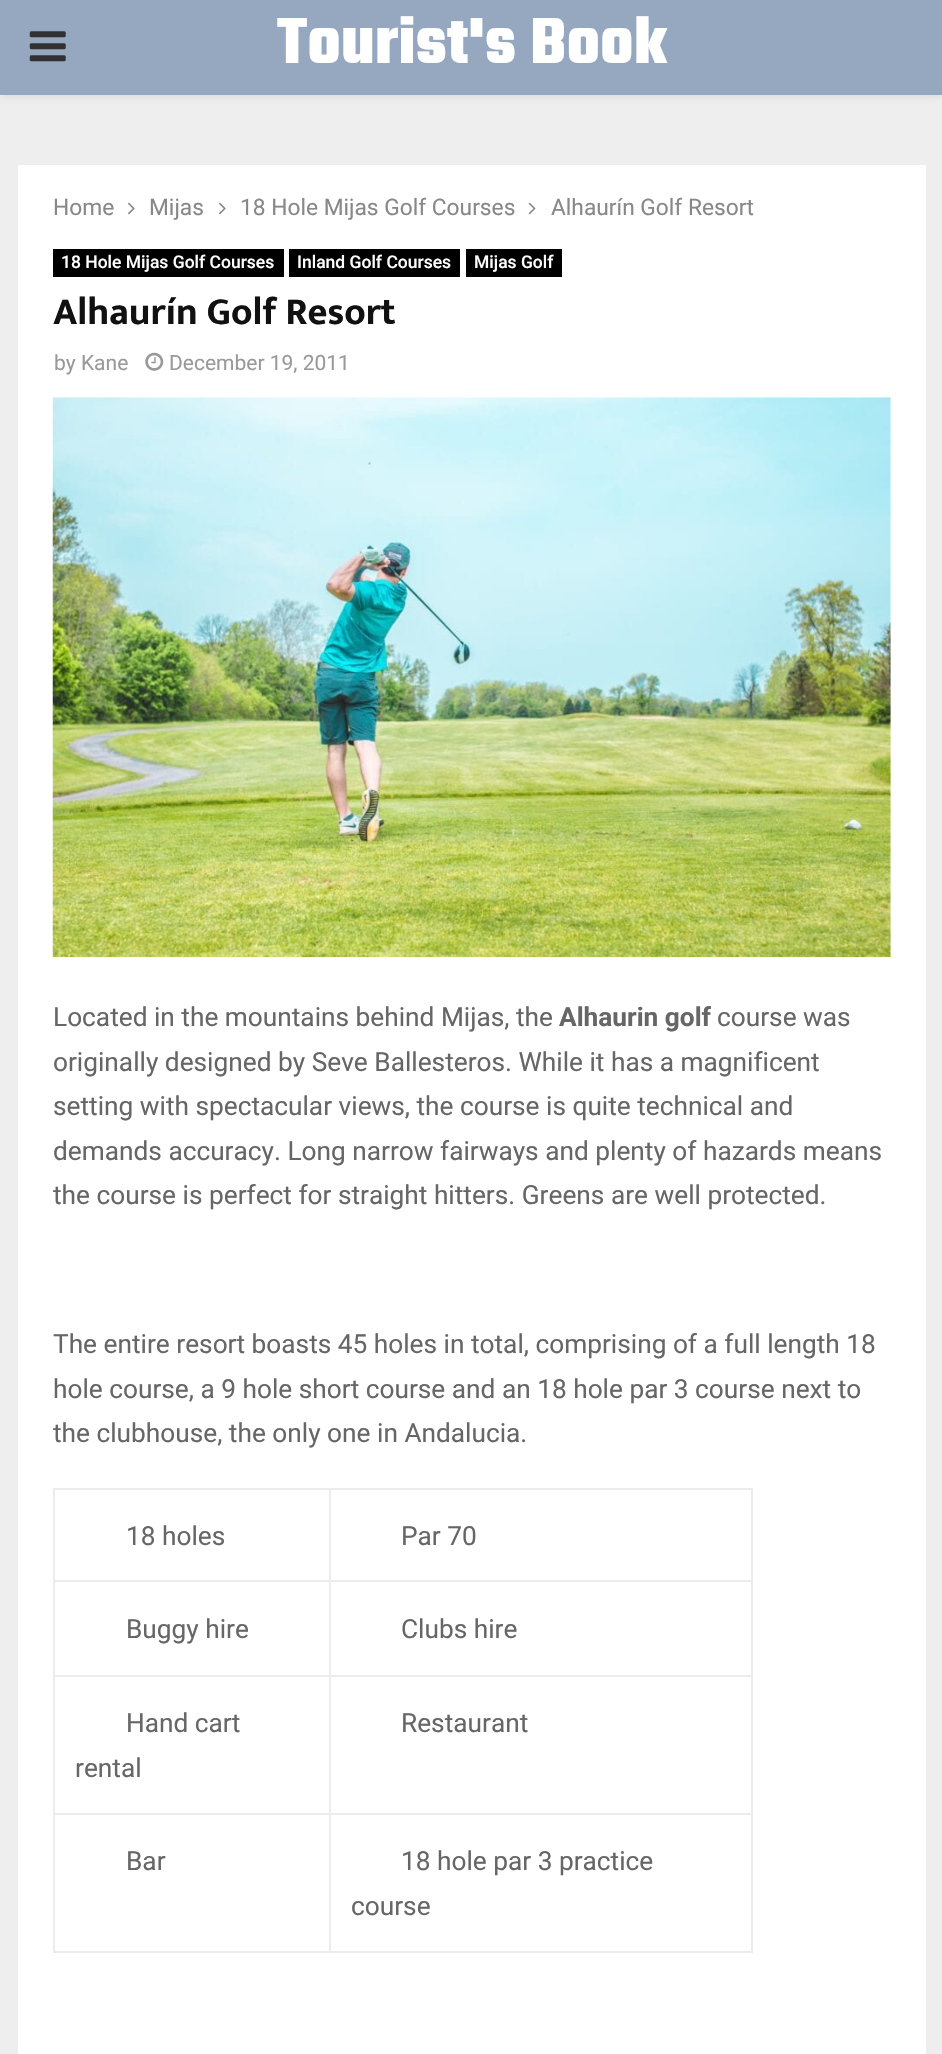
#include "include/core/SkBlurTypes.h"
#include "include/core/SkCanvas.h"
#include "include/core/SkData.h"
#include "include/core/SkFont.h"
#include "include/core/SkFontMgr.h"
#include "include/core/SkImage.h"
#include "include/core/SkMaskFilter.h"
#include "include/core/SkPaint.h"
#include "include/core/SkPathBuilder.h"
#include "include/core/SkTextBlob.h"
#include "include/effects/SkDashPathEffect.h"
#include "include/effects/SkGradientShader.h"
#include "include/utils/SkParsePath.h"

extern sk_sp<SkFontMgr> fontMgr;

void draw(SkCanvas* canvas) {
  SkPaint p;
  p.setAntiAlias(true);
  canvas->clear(SkColorSetRGB(238, 238, 238));
  p.setColor(SkColorSetARGB(117, 190, 190, 190));
  p.setMaskFilter(SkMaskFilter::MakeBlur(kNormal_SkBlurStyle, 4.5f));
  canvas->drawRect(SkRect::MakeLTRB(0, 2, 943, 96), p);
  p.setMaskFilter(nullptr);
  p.setColor(SkColorSetRGB(149, 168, 191));
  canvas->drawRect(SkRect::MakeLTRB(0, 0, 942, 95), p);
  canvas->drawImageRect(SkImages::DeferredFromEncodedData(SkData::MakeFromFileName("images/1.png")), SkRect::MakeLTRB(29, 31, 66, 62), SkSamplingOptions());
  p.setColor(SK_ColorWHITE);
  canvas->drawRect(SkRect::MakeLTRB(18, 165, 926, 2054), p);
  canvas->drawImageRect(SkImages::DeferredFromEncodedData(SkData::MakeFromFileName("images/2.png")), SkRect::MakeLTRB(128, 202, 135, 215), SkSamplingOptions());
  canvas->drawImageRect(SkImages::DeferredFromEncodedData(SkData::MakeFromFileName("images/2.png")), SkRect::MakeLTRB(219, 202, 226, 215), SkSamplingOptions());
  canvas->drawImageRect(SkImages::DeferredFromEncodedData(SkData::MakeFromFileName("images/3.png")), SkRect::MakeLTRB(528, 202, 536, 215), SkSamplingOptions());
  p.setColor(SK_ColorBLACK);
  canvas->drawRect(SkRect::MakeLTRB(53, 249, 284, 277), p);
  canvas->drawRect(SkRect::MakeLTRB(289, 249, 460, 277), p);
  canvas->drawRect(SkRect::MakeLTRB(466, 249, 562, 277), p);
  canvas->drawImageRect(SkImages::DeferredFromEncodedData(SkData::MakeFromFileName("images/4.png")), SkRect::MakeLTRB(145, 352, 164, 371), SkSamplingOptions());
  canvas->drawImageRect(SkImages::DeferredFromEncodedData(SkData::MakeFromFileName("images/5.png")), SkRect::MakeLTRB(52, 397, 891, 958), SkSamplingOptions());
  p.setColor(SkColorSetRGB(236, 236, 236));
  canvas->drawRect(SkRect::MakeLTRB(329, 1488, 753, 1490), p);
  canvas->drawRect(SkRect::MakeLTRB(329, 1580, 753, 1582), p);
  canvas->drawRect(SkRect::MakeLTRB(329, 1675, 753, 1677), p);
  canvas->drawRect(SkRect::MakeLTRB(329, 1813, 753, 1815), p);
  canvas->drawRect(SkRect::MakeLTRB(751, 1813, 753, 1953), p);
  canvas->drawRect(SkRect::MakeLTRB(329, 1951, 753, 1953), p);
  canvas->drawRect(SkRect::MakeLTRB(329, 1813, 331, 1953), p);
  canvas->drawRect(SkRect::MakeLTRB(53, 1813, 331, 1815), p);
  canvas->drawRect(SkRect::MakeLTRB(329, 1675, 331, 1815), p);
  canvas->drawRect(SkRect::MakeLTRB(53, 1675, 331, 1677), p);
  canvas->drawRect(SkRect::MakeLTRB(329, 1580, 331, 1677), p);
  canvas->drawRect(SkRect::MakeLTRB(53, 1580, 331, 1582), p);
  canvas->drawRect(SkRect::MakeLTRB(329, 1488, 331, 1582), p);
  canvas->drawRect(SkRect::MakeLTRB(53, 1488, 331, 1490), p);
  canvas->drawRect(SkRect::MakeLTRB(53, 1951, 331, 1953), p);
  canvas->drawRect(SkRect::MakeLTRB(53, 1813, 55, 1953), p);
  canvas->drawRect(SkRect::MakeLTRB(53, 1675, 55, 1815), p);
  canvas->drawRect(SkRect::MakeLTRB(53, 1580, 55, 1677), p);
  canvas->drawRect(SkRect::MakeLTRB(53, 1488, 55, 1582), p);
  canvas->drawRect(SkRect::MakeLTRB(751, 1675, 753, 1815), p);
  canvas->drawRect(SkRect::MakeLTRB(751, 1580, 753, 1677), p);
  canvas->drawRect(SkRect::MakeLTRB(751, 1488, 753, 1582), p);
  SkFont font1(fontMgr->matchFamilyStyle("Teko", SkFontStyle::Bold()), 70);
  font1.setSubpixel(true);
  p.setColor(SK_ColorWHITE);
  canvas->drawString("Tourist's Book", 277, 63, font1, p);
  SkFont font2(fontMgr->matchFamilyStyle("Roboto", SkFontStyle::Normal()), 22.75f);
  font2.setSubpixel(true);
  p.setColor(SkColorSetRGB(136, 136, 136));
  canvas->drawString("Home", 53, 215, font2, p);
  canvas->drawString("Mijas", 149, 215, font2, p);
  canvas->drawString("18 Hole Mijas Golf Courses", 240, 215, font2, p);
  canvas->drawString("Alhaurín Golf Resort", 551, 215, font2, p);
  SkFont font3(fontMgr->matchFamilyStyle("Roboto", SkFontStyle(500, SkFontStyle::kNormal_Width, SkFontStyle::kUpright_Slant)), 17.5f);
  font3.setSubpixel(true);
  p.setColor(SK_ColorWHITE);
  canvas->drawString("18 Hole Mijas Golf Courses", 61, 268, font3, p);
  canvas->drawString("Inland Golf Courses", 297, 268, font3, p);
  canvas->drawString("Mijas Golf", 474, 268, font3, p);
  SkFont font4(fontMgr->matchFamilyStyle("Mukta Vaani", SkFontStyle::Bold()), 38.5f);
  font4.setSubpixel(true);
  p.setColor(SkColorSetRGB(17, 17, 17));
  canvas->drawString("Alhaurín Golf Resort", 53, 324, font4, p);
  SkFont font5(fontMgr->matchFamilyStyle("Roboto", SkFontStyle::Normal()), 21);
  font5.setSubpixel(true);
  p.setColor(SkColorSetRGB(153, 153, 153));
  canvas->drawString("by Kane", 54, 370, font5, p);
  canvas->drawString("December 19, 2011", 169, 370, font5, p);
  SkFont font6(fontMgr->matchFamilyStyle("Roboto", SkFontStyle::Normal()), 26.25f);
  font6.setSubpixel(true);
  p.setColor(SkColorSetRGB(102, 102, 102));
  canvas->drawString("Located in the mountains behind Mijas, the", 53, 1026, font6, p);
  SkFont font7(fontMgr->matchFamilyStyle("Roboto", SkFontStyle::Bold()), 26.25f);
  font7.setSubpixel(true);
  canvas->drawString("Alhaurin golf", 559, 1026, font7, p);
  canvas->drawString("course was", 717, 1026, font6, p);
  canvas->drawString("originally designed by Seve Ballesteros. While it has a magnificent", 53, 1071, font6, p);
  canvas->drawString("setting with spectacular views, the course is quite technical and", 53, 1115, font6, p);
  canvas->drawString("demands accuracy. Long narrow fairways and plenty of hazards means", 53, 1160, font6, p);
  canvas->drawString("the course is perfect for straight hitters. Greens are well protected.", 53, 1204, font6, p);
  canvas->drawString("The entire resort boasts 45 holes in total, comprising of a full length 18", 53, 1353, font6, p);
  canvas->drawString("hole course, a 9 hole short course and an 18 hole par 3 course next to", 53, 1398, font6, p);
  canvas->drawString("the clubhouse, the only one in Andalucia.", 53, 1442, font6, p);
  canvas->drawString("18 holes", 126, 1545, font6, p);
  canvas->drawString("Par 70", 401, 1545, font6, p);
  canvas->drawString("Buggy hire", 126, 1638, font6, p);
  canvas->drawString("Clubs hire", 401, 1638, font6, p);
  canvas->drawString("Hand cart", 126, 1732, font6, p);
  canvas->drawString("rental", 75, 1777, font6, p);
  canvas->drawString("Restaurant", 401, 1732, font6, p);
  canvas->drawString("Bar", 126, 1870, font6, p);
  canvas->drawString("18 hole par 3 practice", 401, 1870, font6, p);
  canvas->drawString("course", 351, 1915, font6, p);
}
